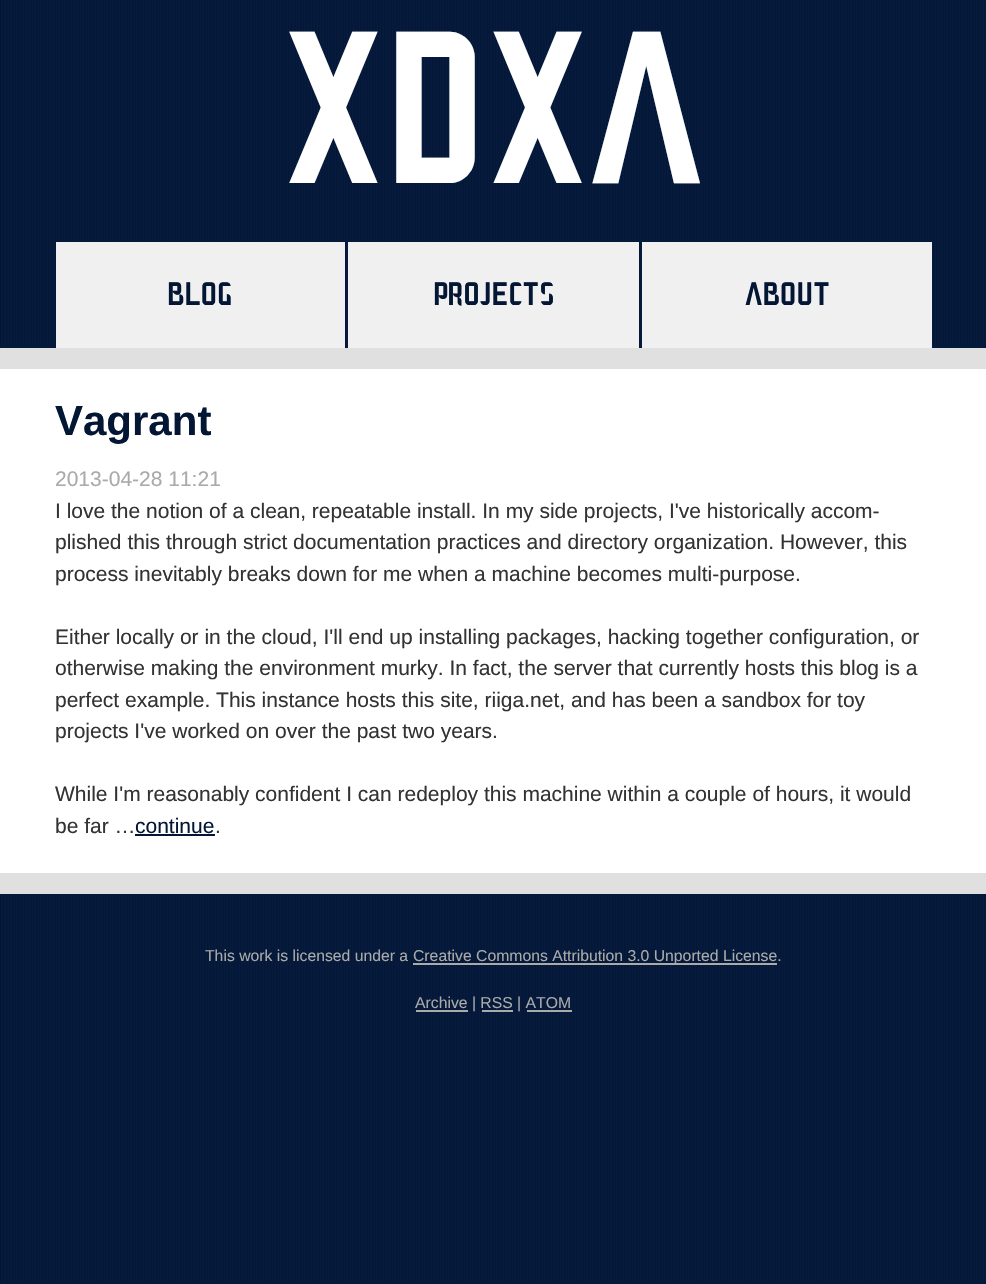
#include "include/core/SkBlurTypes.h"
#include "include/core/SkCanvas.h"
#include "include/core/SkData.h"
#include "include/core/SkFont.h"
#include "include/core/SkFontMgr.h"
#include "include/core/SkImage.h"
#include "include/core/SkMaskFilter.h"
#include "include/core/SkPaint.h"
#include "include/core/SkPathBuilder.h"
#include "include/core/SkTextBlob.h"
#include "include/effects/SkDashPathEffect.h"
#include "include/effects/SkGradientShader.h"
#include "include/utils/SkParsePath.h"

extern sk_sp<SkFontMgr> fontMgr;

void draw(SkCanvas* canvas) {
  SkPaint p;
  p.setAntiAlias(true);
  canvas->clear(SkColorSetRGB(3, 22, 52));
  canvas->drawImageRect(SkImages::DeferredFromEncodedData(SkData::MakeFromFileName("images/1.png")), SkRect::MakeLTRB(1, 0, 986, 1284), SkSamplingOptions());
  p.setColor(SkColorSetRGB(224, 224, 224));
  canvas->drawRect(SkRect::MakeLTRB(0, 348, 986, 369), p);
  p.setColor(SkColorSetRGB(240, 240, 240));
  canvas->drawRect(SkRect::MakeLTRB(56, 242, 345, 348), p);
  canvas->drawRect(SkRect::MakeLTRB(348, 242, 639, 348), p);
  canvas->drawRect(SkRect::MakeLTRB(642, 242, 932, 348), p);
  p.setColor(SK_ColorWHITE);
  canvas->drawRect(SkRect::MakeLTRB(0, 369, 986, 873), p);
  p.setColor(SkColorSetRGB(3, 22, 52));
  canvas->drawRect(SkRect::MakeLTRB(135, 834, 215, 836), p);
  p.setColor(SkColorSetRGB(224, 224, 224));
  canvas->drawRect(SkRect::MakeLTRB(0, 873, 986, 894), p);
  p.setColor(SkColorSetRGB(170, 170, 170));
  canvas->drawRect(SkRect::MakeLTRB(413, 963, 777, 965), p);
  canvas->drawRect(SkRect::MakeLTRB(416, 1010, 468, 1012), p);
  canvas->drawRect(SkRect::MakeLTRB(482, 1010, 513, 1012), p);
  canvas->drawRect(SkRect::MakeLTRB(527, 1010, 572, 1012), p);
  SkFont font1(fontMgr->matchFamilyStyle("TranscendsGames", SkFontStyle(500, SkFontStyle::kNormal_Width, SkFontStyle::kUpright_Slant)), 210);
  font1.setSubpixel(true);
  p.setColor(SK_ColorWHITE);
  canvas->drawString("XDXA", 283, 183, font1, p);
  SkFont font2(fontMgr->matchFamilyStyle("TranscendsGames", SkFontStyle(500, SkFontStyle::kNormal_Width, SkFontStyle::kUpright_Slant)), 31.5f);
  font2.setSubpixel(true);
  p.setColor(SkColorSetRGB(3, 22, 52));
  canvas->drawString("BLOG", 167, 305, font2, p);
  canvas->drawString("PROJECTS", 433, 305, font2, p);
  canvas->drawString("ABOUT", 745, 305, font2, p);
  SkFont font3(fontMgr->matchFamilyStyle("Liberation Sans", SkFontStyle::Bold()), 42);
  font3.setSubpixel(true);
  canvas->drawString("Vagrant", 55, 435, font3, p);
  SkFont font4(fontMgr->matchFamilyStyle("Liberation Sans", SkFontStyle::Normal()), 21);
  font4.setSubpixel(true);
  p.setColor(SkColorSetRGB(170, 170, 170));
  canvas->drawString("2013-04-28 11:21", 55, 486, font4, p);
  p.setColor(SkColorSetRGB(51, 51, 51));
  canvas->drawString("I love the notion of a clean, repeatable install. In my side projects, I've historically accom-", 55, 518, font4, p);
  canvas->drawString("plished this through strict documentation practices and directory organization. However, this", 55, 549, font4, p);
  canvas->drawString("process inevitably breaks down for me when a machine becomes multi-purpose.", 55, 581, font4, p);
  canvas->drawString("Either locally or in the cloud, I'll end up installing packages, hacking together configuration, or", 55, 644, font4, p);
  canvas->drawString("otherwise making the environment murky. In fact, the server that currently hosts this blog is a", 55, 675, font4, p);
  canvas->drawString("perfect example. This instance hosts this site, riiga.net, and has been a sandbox for toy", 55, 707, font4, p);
  canvas->drawString("projects I've worked on over the past two years.", 55, 738, font4, p);
  canvas->drawString("While I'm reasonably confident I can redeploy this machine within a couple of hours, it would", 55, 801, font4, p);
  canvas->drawString("be far …", 55, 833, font4, p);
  p.setColor(SkColorSetRGB(3, 22, 52));
  canvas->drawString("continue", 135, 833, font4, p);
  p.setColor(SkColorSetRGB(51, 51, 51));
  canvas->drawString(".", 215, 833, font4, p);
  SkFont font5(fontMgr->matchFamilyStyle("Liberation Sans", SkFontStyle::Normal()), 15.75f);
  font5.setSubpixel(true);
  p.setColor(SkColorSetRGB(170, 170, 170));
  canvas->drawString("This work is licensed under a", 205, 961, font5, p);
  canvas->drawString("Creative Commons Attribution 3.0 Unported License.", 413, 961, font5, p);
  canvas->drawString("Archive | RSS | ATOM", 415, 1008, font5, p);
}
